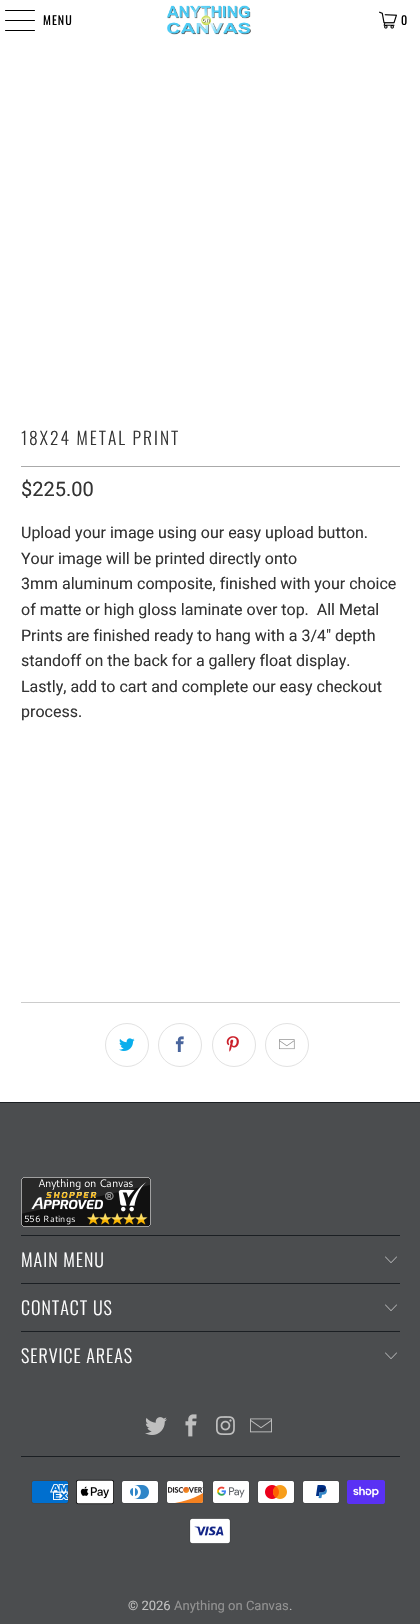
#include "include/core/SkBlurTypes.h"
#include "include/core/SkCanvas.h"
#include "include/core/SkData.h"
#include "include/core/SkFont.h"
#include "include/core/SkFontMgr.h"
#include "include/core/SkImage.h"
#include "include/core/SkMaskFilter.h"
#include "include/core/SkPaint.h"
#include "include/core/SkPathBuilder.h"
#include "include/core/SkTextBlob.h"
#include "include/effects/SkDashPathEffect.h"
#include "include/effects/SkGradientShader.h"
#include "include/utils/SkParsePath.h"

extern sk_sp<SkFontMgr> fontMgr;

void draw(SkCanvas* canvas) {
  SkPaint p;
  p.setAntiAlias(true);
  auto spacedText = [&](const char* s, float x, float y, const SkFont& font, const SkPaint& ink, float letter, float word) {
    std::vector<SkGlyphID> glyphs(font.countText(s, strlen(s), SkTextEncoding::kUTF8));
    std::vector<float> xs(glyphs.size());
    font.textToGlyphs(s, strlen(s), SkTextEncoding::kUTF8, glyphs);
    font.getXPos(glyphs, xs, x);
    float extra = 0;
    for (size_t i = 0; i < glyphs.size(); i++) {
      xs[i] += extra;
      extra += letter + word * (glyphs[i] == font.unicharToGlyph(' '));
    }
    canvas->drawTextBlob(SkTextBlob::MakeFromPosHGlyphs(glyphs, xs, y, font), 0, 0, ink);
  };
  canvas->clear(SK_ColorWHITE);
  p.setColor(SK_ColorBLACK);
  canvas->drawRoundRect(SkRect::MakeLTRB(5, 10, 35, 11), 0.5f, 0.5f, p);
  canvas->drawRoundRect(SkRect::MakeLTRB(5, 20, 35, 21), 0.5f, 0.5f, p);
  canvas->drawRoundRect(SkRect::MakeLTRB(5, 30, 35, 31), 0.5f, 0.5f, p);
  canvas->drawImageRect(SkImages::DeferredFromEncodedData(SkData::MakeFromFileName("images/1.png")), SkRect::MakeLTRB(166, 5, 251, 35), SkSamplingOptions());
  canvas->drawImageRect(SkImages::DeferredFromEncodedData(SkData::MakeFromFileName("images/2.png")), SkRect::MakeLTRB(379, 11, 397, 29), SkSamplingOptions());
  p.setColor(SkColorSetRGB(170, 170, 170));
  canvas->drawRect(SkRect::MakeLTRB(21, 466, 400, 467), p);
  p.setColor(SkColorSetRGB(204, 204, 204));
  canvas->drawRect(SkRect::MakeLTRB(21, 1002, 400, 1003), p);
  p.setStyle(SkPaint::kStroke_Style);
  p.setStrokeWidth(1);
  p.setColor(SkColorSetRGB(226, 226, 226));
  canvas->drawCircle(127, 1045, 21.5f, p);
  canvas->drawImageRect(SkImages::DeferredFromEncodedData(SkData::MakeFromFileName("images/3.png")), SkRect::MakeLTRB(119, 1038, 135, 1051), SkSamplingOptions());
  canvas->drawCircle(180, 1045, 21.5f, p);
  canvas->drawImageRect(SkImages::DeferredFromEncodedData(SkData::MakeFromFileName("images/4.png")), SkRect::MakeLTRB(175, 1036, 184, 1052), SkSamplingOptions());
  canvas->drawCircle(234, 1045, 21.5f, p);
  canvas->drawImageRect(SkImages::DeferredFromEncodedData(SkData::MakeFromFileName("images/5.png")), SkRect::MakeLTRB(226, 1036, 239, 1052), SkSamplingOptions());
  canvas->drawCircle(287, 1045, 21.5f, p);
  canvas->drawImageRect(SkImages::DeferredFromEncodedData(SkData::MakeFromFileName("images/6.png")), SkRect::MakeLTRB(279, 1039, 295, 1050), SkSamplingOptions());
  p.setStyle(SkPaint::kFill_Style);
  p.setColor(SkColorSetRGB(75, 77, 79));
  canvas->drawRect(SkRect::MakeLTRB(0, 1103, 420, 1624), p);
  p.setColor(SkColorSetRGB(27, 31, 35));
  canvas->drawRect(SkRect::MakeLTRB(0, 1102, 420, 1103), p);
  canvas->drawImageRect(SkImages::DeferredFromEncodedData(SkData::MakeFromFileName("images/7.png")), SkRect::MakeLTRB(21, 1177, 151, 1227), SkSamplingOptions());
  canvas->drawRect(SkRect::MakeLTRB(21, 1235, 400, 1236), p);
  canvas->drawImageRect(SkImages::DeferredFromEncodedData(SkData::MakeFromFileName("images/8.png")), SkRect::MakeLTRB(385, 1256, 397, 1263), SkSamplingOptions());
  canvas->drawRect(SkRect::MakeLTRB(21, 1283, 400, 1284), p);
  canvas->drawImageRect(SkImages::DeferredFromEncodedData(SkData::MakeFromFileName("images/8.png")), SkRect::MakeLTRB(385, 1304, 397, 1311), SkSamplingOptions());
  canvas->drawRect(SkRect::MakeLTRB(21, 1331, 400, 1332), p);
  canvas->drawImageRect(SkImages::DeferredFromEncodedData(SkData::MakeFromFileName("images/8.png")), SkRect::MakeLTRB(385, 1352, 397, 1359), SkSamplingOptions());
  canvas->drawImageRect(SkImages::DeferredFromEncodedData(SkData::MakeFromFileName("images/9.png")), SkRect::MakeLTRB(145, 1417, 167, 1435), SkSamplingOptions());
  canvas->drawImageRect(SkImages::DeferredFromEncodedData(SkData::MakeFromFileName("images/10.png")), SkRect::MakeLTRB(185, 1414, 197, 1437), SkSamplingOptions());
  canvas->drawImageRect(SkImages::DeferredFromEncodedData(SkData::MakeFromFileName("images/11.png")), SkRect::MakeLTRB(216, 1416, 235, 1435), SkSamplingOptions());
  canvas->drawImageRect(SkImages::DeferredFromEncodedData(SkData::MakeFromFileName("images/12.png")), SkRect::MakeLTRB(250, 1418, 272, 1433), SkSamplingOptions());
  canvas->drawRect(SkRect::MakeLTRB(21, 1456, 400, 1457), p);
  canvas->drawImageRect(SkImages::DeferredFromEncodedData(SkData::MakeFromFileName("images/13.png")), SkRect::MakeLTRB(31, 1480, 69, 1504), SkSamplingOptions());
  canvas->drawImageRect(SkImages::DeferredFromEncodedData(SkData::MakeFromFileName("images/14.png")), SkRect::MakeLTRB(76, 1479, 114, 1505), SkSamplingOptions());
  canvas->drawImageRect(SkImages::DeferredFromEncodedData(SkData::MakeFromFileName("images/15.png")), SkRect::MakeLTRB(121, 1480, 159, 1504), SkSamplingOptions());
  canvas->drawImageRect(SkImages::DeferredFromEncodedData(SkData::MakeFromFileName("images/16.png")), SkRect::MakeLTRB(166, 1480, 204, 1504), SkSamplingOptions());
  canvas->drawImageRect(SkImages::DeferredFromEncodedData(SkData::MakeFromFileName("images/17.png")), SkRect::MakeLTRB(212, 1480, 250, 1504), SkSamplingOptions());
  canvas->drawImageRect(SkImages::DeferredFromEncodedData(SkData::MakeFromFileName("images/18.png")), SkRect::MakeLTRB(257, 1480, 295, 1504), SkSamplingOptions());
  canvas->drawImageRect(SkImages::DeferredFromEncodedData(SkData::MakeFromFileName("images/19.png")), SkRect::MakeLTRB(302, 1480, 340, 1504), SkSamplingOptions());
  canvas->drawImageRect(SkImages::DeferredFromEncodedData(SkData::MakeFromFileName("images/20.png")), SkRect::MakeLTRB(347, 1480, 385, 1504), SkSamplingOptions());
  canvas->drawImageRect(SkImages::DeferredFromEncodedData(SkData::MakeFromFileName("images/21.png")), SkRect::MakeLTRB(189, 1518, 231, 1544), SkSamplingOptions());
  SkFont font1(fontMgr->matchFamilyStyle("Oswald", SkFontStyle::Normal()), 12);
  font1.setSubpixel(true);
  p.setColor(SK_ColorBLACK);
  spacedText("MENU", 43, 25, font1, p, 1, 0);
  spacedText("0", 401, 25, font1, p, 1, 0);
  SkFont font2(fontMgr->matchFamilyStyle("Oswald", SkFontStyle(300, SkFontStyle::kNormal_Width, SkFontStyle::kUpright_Slant)), 17.5f);
  font2.setSubpixel(true);
  p.setColor(SkColorSetRGB(51, 51, 51));
  spacedText("18X24 METAL PRINT", 21, 445, font2, p, 2, 0);
  SkFont font3(fontMgr->matchFamilyStyle("Roboto", SkFontStyle::Normal()), 20);
  font3.setSubpixel(true);
  canvas->drawString("$225.00", 21, 496, font3, p);
  SkFont font4(fontMgr->matchFamilyStyle("Roboto", SkFontStyle::Normal()), 16);
  font4.setSubpixel(true);
  canvas->drawString("Upload your image using our easy upload button.", 21, 538, font4, p);
  canvas->drawString("Your image will be printed directly onto", 21, 564, font4, p);
  canvas->drawString("3mm aluminum composite, finished with your choice", 21, 589, font4, p);
  canvas->drawString("of matte or high gloss laminate over top.  All Metal", 21, 615, font4, p);
  canvas->drawString("Prints are finished ready to hang with a 3/4\" depth", 21, 641, font4, p);
  canvas->drawString("standoff on the back for a gallery float display.", 21, 666, font4, p);
  canvas->drawString("Lastly, add to cart and complete our easy checkout", 21, 692, font4, p);
  canvas->drawString("process.", 21, 717, font4, p);
  SkFont font5(fontMgr->matchFamilyStyle("Oswald", SkFontStyle(300, SkFontStyle::kNormal_Width, SkFontStyle::kUpright_Slant)), 18);
  font5.setSubpixel(true);
  p.setColor(SK_ColorWHITE);
  spacedText("MAIN MENU", 21, 1267, font5, p, 1, 0);
  spacedText("CONTACT US", 21, 1315, font5, p, 1, 0);
  spacedText("SERVICE AREAS", 21, 1363, font5, p, 1, 0);
  SkFont font6(fontMgr->matchFamilyStyle("Roboto", SkFontStyle::Normal()), 13);
  font6.setSubpixel(true);
  p.setColor(SkColorSetRGB(191, 191, 191));
  canvas->drawString("© 2026", 128, 1610, font6, p);
  p.setColor(SkColorSetRGB(146, 146, 146));
  canvas->drawString("Anything on Canvas", 174, 1610, font6, p);
  p.setColor(SkColorSetRGB(191, 191, 191));
  canvas->drawString(".", 289, 1610, font6, p);
}
